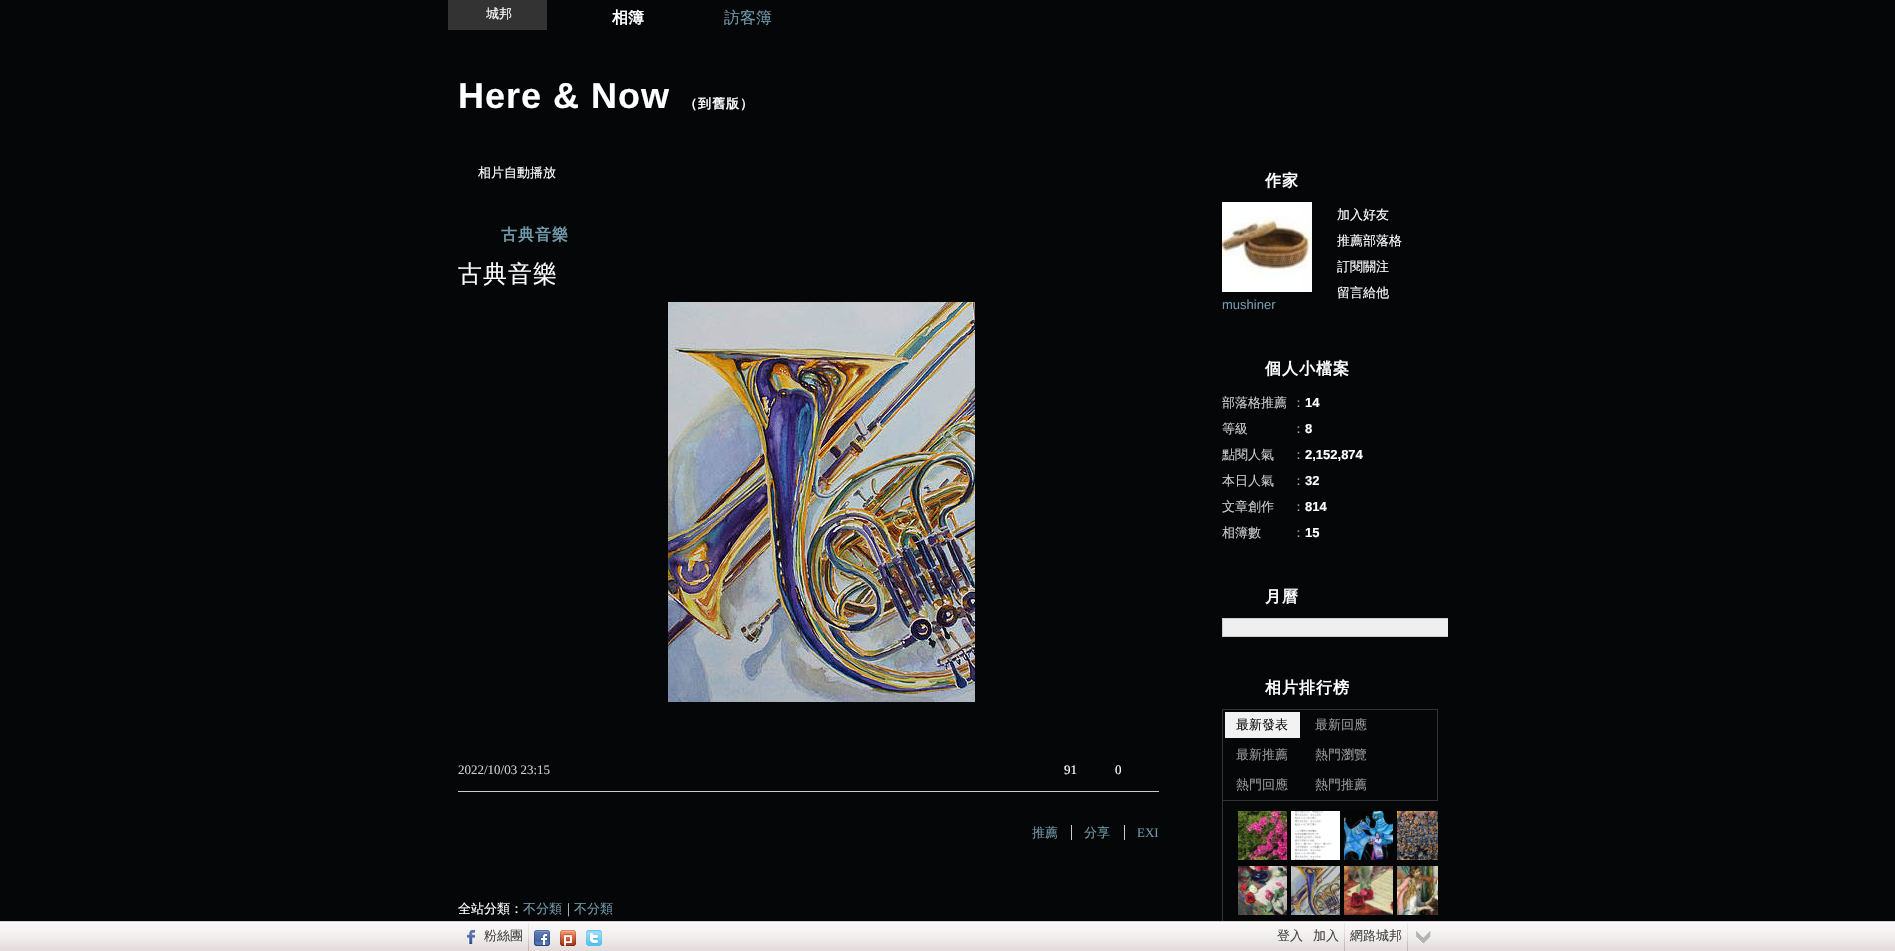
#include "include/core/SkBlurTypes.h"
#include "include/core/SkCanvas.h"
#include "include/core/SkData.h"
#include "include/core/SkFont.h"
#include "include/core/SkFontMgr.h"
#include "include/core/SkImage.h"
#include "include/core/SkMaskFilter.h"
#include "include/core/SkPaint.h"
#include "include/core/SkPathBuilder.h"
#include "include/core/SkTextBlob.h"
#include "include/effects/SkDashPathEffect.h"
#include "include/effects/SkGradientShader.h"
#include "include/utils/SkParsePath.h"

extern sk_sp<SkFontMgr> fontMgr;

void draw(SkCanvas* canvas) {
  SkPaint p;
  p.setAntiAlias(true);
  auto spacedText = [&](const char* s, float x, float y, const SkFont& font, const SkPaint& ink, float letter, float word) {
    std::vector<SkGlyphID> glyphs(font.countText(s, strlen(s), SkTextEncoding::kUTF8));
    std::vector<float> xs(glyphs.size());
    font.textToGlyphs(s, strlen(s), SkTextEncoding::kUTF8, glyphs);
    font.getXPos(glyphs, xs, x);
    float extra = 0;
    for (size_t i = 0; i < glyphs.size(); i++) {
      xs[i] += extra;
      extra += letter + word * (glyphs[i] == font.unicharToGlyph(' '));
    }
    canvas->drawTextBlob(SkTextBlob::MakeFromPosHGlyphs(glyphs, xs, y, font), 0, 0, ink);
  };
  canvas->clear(SkColorSetRGB(5, 6, 8));
  p.setColor(SkColorSetRGB(51, 51, 51));
  canvas->drawRect(SkRect::MakeLTRB(448, 0, 547, 30), p);
  canvas->drawImageRect(SkImages::DeferredFromEncodedData(SkData::MakeFromFileName("images/1.png")), SkRect::MakeLTRB(668, 302, 975, 702), SkSamplingOptions());
  p.setColor(SkColorSetRGB(204, 204, 204));
  canvas->drawRect(SkRect::MakeLTRB(458, 791, 1159, 792), p);
  canvas->drawRect(SkRect::MakeLTRB(1071, 825, 1072, 840), p);
  canvas->drawRect(SkRect::MakeLTRB(1124, 825, 1125, 840), p);
  canvas->drawImageRect(SkImages::DeferredFromEncodedData(SkData::MakeFromFileName("images/2.png")), SkRect::MakeLTRB(1222, 202, 1312, 292), SkSamplingOptions());
  p.setColor(SkColorSetRGB(239, 239, 239));
  canvas->drawRect(SkRect::MakeLTRB(1223, 619, 1448, 636), p);
  canvas->save();
  canvas->clipRect(SkRect::MakeLTRB(448, 150, 1448, 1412));
  p.setStyle(SkPaint::kStroke_Style);
  p.setStrokeWidth(1);
  p.setColor(SkColorSetRGB(204, 204, 204));
  canvas->drawRect(SkRect::MakeLTRB(1222.5f, 618.5f, 1461.5f, 636.5f), p);
  canvas->restore();
  p.setColor(SkColorSetRGB(51, 51, 51));
  canvas->drawRect(SkRect::MakeLTRB(1222.5f, 709.5f, 1437.5f, 800.5f), p);
  p.setStyle(SkPaint::kFill_Style);
  p.setColor(SkColorSetRGB(242, 242, 242));
  canvas->drawRect(SkRect::MakeLTRB(1225, 712, 1300, 738), p);
  p.setColor(SkColorSetRGB(51, 51, 51));
  canvas->drawRect(SkRect::MakeLTRB(1222, 801, 1223, 921), p);
  canvas->drawImageRect(SkImages::DeferredFromEncodedData(SkData::MakeFromFileName("images/3.png")), SkRect::MakeLTRB(1238, 811, 1287, 860), SkSamplingOptions());
  canvas->drawImageRect(SkImages::DeferredFromEncodedData(SkData::MakeFromFileName("images/4.png")), SkRect::MakeLTRB(1291, 811, 1340, 860), SkSamplingOptions());
  canvas->drawImageRect(SkImages::DeferredFromEncodedData(SkData::MakeFromFileName("images/5.png")), SkRect::MakeLTRB(1344, 811, 1393, 860), SkSamplingOptions());
  canvas->drawImageRect(SkImages::DeferredFromEncodedData(SkData::MakeFromFileName("images/6.png")), SkRect::MakeLTRB(1397, 811, 1438, 860), SkSamplingOptions());
  canvas->drawImageRect(SkImages::DeferredFromEncodedData(SkData::MakeFromFileName("images/7.png")), SkRect::MakeLTRB(1238, 866, 1287, 915), SkSamplingOptions());
  canvas->drawImageRect(SkImages::DeferredFromEncodedData(SkData::MakeFromFileName("images/8.png")), SkRect::MakeLTRB(1291, 866, 1340, 915), SkSamplingOptions());
  canvas->drawImageRect(SkImages::DeferredFromEncodedData(SkData::MakeFromFileName("images/9.png")), SkRect::MakeLTRB(1344, 866, 1393, 915), SkSamplingOptions());
  canvas->drawImageRect(SkImages::DeferredFromEncodedData(SkData::MakeFromFileName("images/10.png")), SkRect::MakeLTRB(1397, 866, 1438, 915), SkSamplingOptions());
  canvas->drawImageRect(SkImages::DeferredFromEncodedData(SkData::MakeFromFileName("images/11.png")), SkRect::MakeLTRB(0, 921, 1895, 951), SkSamplingOptions());
  canvas->drawImageRect(SkImages::DeferredFromEncodedData(SkData::MakeFromFileName("images/12.png")), SkRect::MakeLTRB(467, 930, 475, 944), SkSamplingOptions());
  canvas->drawImageRect(SkImages::DeferredFromEncodedData(SkData::MakeFromFileName("images/13.png")), SkRect::MakeLTRB(528, 923, 529, 951), SkSamplingOptions());
  canvas->drawImageRect(SkImages::DeferredFromEncodedData(SkData::MakeFromFileName("images/14.png")), SkRect::MakeLTRB(534, 930, 550, 946), SkSamplingOptions());
  canvas->drawImageRect(SkImages::DeferredFromEncodedData(SkData::MakeFromFileName("images/15.png")), SkRect::MakeLTRB(560, 930, 576, 946), SkSamplingOptions());
  canvas->drawImageRect(SkImages::DeferredFromEncodedData(SkData::MakeFromFileName("images/16.png")), SkRect::MakeLTRB(586, 930, 602, 946), SkSamplingOptions());
  canvas->drawImageRect(SkImages::DeferredFromEncodedData(SkData::MakeFromFileName("images/13.png")), SkRect::MakeLTRB(1344, 923, 1345, 951), SkSamplingOptions());
  canvas->drawImageRect(SkImages::DeferredFromEncodedData(SkData::MakeFromFileName("images/13.png")), SkRect::MakeLTRB(1407, 923, 1408, 951), SkSamplingOptions());
  canvas->drawImageRect(SkImages::DeferredFromEncodedData(SkData::MakeFromFileName("images/17.png")), SkRect::MakeLTRB(1416, 930, 1431, 944), SkSamplingOptions());
  SkFont font1(fontMgr->matchFamilyStyle("WenQuanYi Zen Hei", SkFontStyle(500, SkFontStyle::kNormal_Width, SkFontStyle::kUpright_Slant)), 13);
  font1.setSubpixel(true);
  p.setColor(SK_ColorWHITE);
  canvas->drawString("城邦", 486, 18, font1, p);
  SkFont font2(fontMgr->matchFamilyStyle("WenQuanYi Zen Hei", SkFontStyle::Bold()), 16);
  font2.setSubpixel(true);
  canvas->drawString("相簿", 612, 23, font2, p);
  SkFont font3(fontMgr->matchFamilyStyle("WenQuanYi Zen Hei", SkFontStyle(500, SkFontStyle::kNormal_Width, SkFontStyle::kUpright_Slant)), 16);
  font3.setSubpixel(true);
  p.setColor(SkColorSetRGB(113, 153, 170));
  canvas->drawString("訪客簿", 724, 23, font3, p);
  SkFont font4(fontMgr->matchFamilyStyle("Liberation Sans", SkFontStyle::Bold()), 36);
  font4.setSubpixel(true);
  p.setColor(SK_ColorWHITE);
  spacedText("Here & Now", 458, 108, font4, p, 1, 0);
  SkFont font5(fontMgr->matchFamilyStyle("WenQuanYi Zen Hei", SkFontStyle::Bold()), 13);
  font5.setSubpixel(true);
  spacedText("（到舊版）", 684, 108, font5, p, 1, 0);
  canvas->drawString("相片自動播放", 478, 177, font1, p);
  p.setColor(SkColorSetRGB(113, 153, 170));
  spacedText("古典音樂", 501, 240, font2, p, 1, 0);
  SkFont font6(fontMgr->matchFamilyStyle("WenQuanYi Zen Hei", SkFontStyle(500, SkFontStyle::kNormal_Width, SkFontStyle::kUpright_Slant)), 24);
  font6.setSubpixel(true);
  p.setColor(SK_ColorWHITE);
  spacedText("古典音樂", 458, 282, font6, p, 1, 0);
  SkFont font7(fontMgr->matchFamilyStyle("Liberation Serif", SkFontStyle::Normal()), 13);
  font7.setSubpixel(true);
  p.setColor(SkColorSetRGB(204, 204, 204));
  canvas->drawString("2022/10/03 23:15", 458, 774, font7, p);
  p.setColor(SK_ColorWHITE);
  canvas->drawString("91", 1064, 774, font7, p);
  canvas->drawString("0", 1115, 774, font7, p);
  p.setColor(SkColorSetRGB(113, 153, 170));
  canvas->drawString("推薦", 1032, 837, font1, p);
  canvas->drawString("分享", 1084, 837, font1, p);
  canvas->drawString("EXI", 1137, 837, font7, p);
  p.setColor(SK_ColorWHITE);
  canvas->drawString("全站分類：", 458, 913, font1, p);
  p.setColor(SkColorSetRGB(113, 153, 170));
  canvas->drawString("不分類", 523, 913, font1, p);
  p.setColor(SkColorSetRGB(204, 204, 204));
  canvas->drawString("｜", 562, 913, font1, p);
  p.setColor(SkColorSetRGB(113, 153, 170));
  canvas->drawString("不分類", 574, 913, font1, p);
  p.setColor(SK_ColorWHITE);
  spacedText("作家", 1265, 186, font2, p, 1, 0);
  canvas->drawString("加入好友", 1337, 219, font1, p);
  canvas->drawString("推薦部落格", 1337, 245, font1, p);
  canvas->drawString("訂閱關注", 1337, 271, font1, p);
  canvas->drawString("留言給他", 1337, 297, font1, p);
  SkFont font8(fontMgr->matchFamilyStyle("Liberation Sans", SkFontStyle::Normal()), 13);
  font8.setSubpixel(true);
  p.setColor(SkColorSetRGB(113, 153, 170));
  canvas->drawString("mushiner", 1222, 309, font8, p);
  p.setColor(SK_ColorWHITE);
  spacedText("個人小檔案", 1265, 374, font2, p, 1, 0);
  p.setColor(SkColorSetRGB(204, 204, 204));
  canvas->drawString("部落格推薦", 1222, 407, font1, p);
  p.setColor(SkColorSetRGB(170, 170, 170));
  canvas->drawString("：", 1292, 407, font1, p);
  SkFont font9(fontMgr->matchFamilyStyle("Liberation Sans", SkFontStyle::Bold()), 13);
  font9.setSubpixel(true);
  p.setColor(SK_ColorWHITE);
  canvas->drawString("14", 1305, 407, font9, p);
  p.setColor(SkColorSetRGB(204, 204, 204));
  canvas->drawString("等級", 1222, 433, font1, p);
  p.setColor(SkColorSetRGB(170, 170, 170));
  canvas->drawString("：", 1292, 433, font1, p);
  p.setColor(SK_ColorWHITE);
  canvas->drawString("8", 1305, 433, font9, p);
  p.setColor(SkColorSetRGB(204, 204, 204));
  canvas->drawString("點閱人氣", 1222, 459, font1, p);
  p.setColor(SkColorSetRGB(170, 170, 170));
  canvas->drawString("：", 1292, 459, font1, p);
  p.setColor(SK_ColorWHITE);
  canvas->drawString("2,152,874", 1305, 459, font9, p);
  p.setColor(SkColorSetRGB(204, 204, 204));
  canvas->drawString("本日人氣", 1222, 485, font1, p);
  p.setColor(SkColorSetRGB(170, 170, 170));
  canvas->drawString("：", 1292, 485, font1, p);
  p.setColor(SK_ColorWHITE);
  canvas->drawString("32", 1305, 485, font9, p);
  p.setColor(SkColorSetRGB(204, 204, 204));
  canvas->drawString("文章創作", 1222, 511, font1, p);
  p.setColor(SkColorSetRGB(170, 170, 170));
  canvas->drawString("：", 1292, 511, font1, p);
  p.setColor(SK_ColorWHITE);
  canvas->drawString("814", 1305, 511, font9, p);
  p.setColor(SkColorSetRGB(204, 204, 204));
  canvas->drawString("相簿數", 1222, 537, font1, p);
  p.setColor(SkColorSetRGB(170, 170, 170));
  canvas->drawString("：", 1292, 537, font1, p);
  p.setColor(SK_ColorWHITE);
  canvas->drawString("15", 1305, 537, font9, p);
  spacedText("月曆", 1265, 602, font2, p, 1, 0);
  spacedText("相片排行榜", 1265, 693, font2, p, 1, 0);
  p.setColor(SkColorSetRGB(17, 17, 17));
  canvas->drawString("最新發表", 1236, 729, font1, p);
  p.setColor(SkColorSetRGB(153, 153, 153));
  canvas->drawString("最新回應", 1315, 729, font1, p);
  canvas->drawString("最新推薦", 1236, 759, font1, p);
  canvas->drawString("熱門瀏覽", 1315, 759, font1, p);
  canvas->drawString("熱門回應", 1236, 789, font1, p);
  canvas->drawString("熱門推薦", 1315, 789, font1, p);
  p.setColor(SkColorSetRGB(68, 68, 68));
  canvas->drawString("粉絲團", 484, 940, font1, p);
  canvas->drawString("登入", 1277, 940, font1, p);
  canvas->drawString("加入", 1313, 940, font1, p);
  canvas->drawString("網路城邦", 1350, 940, font1, p);
}
